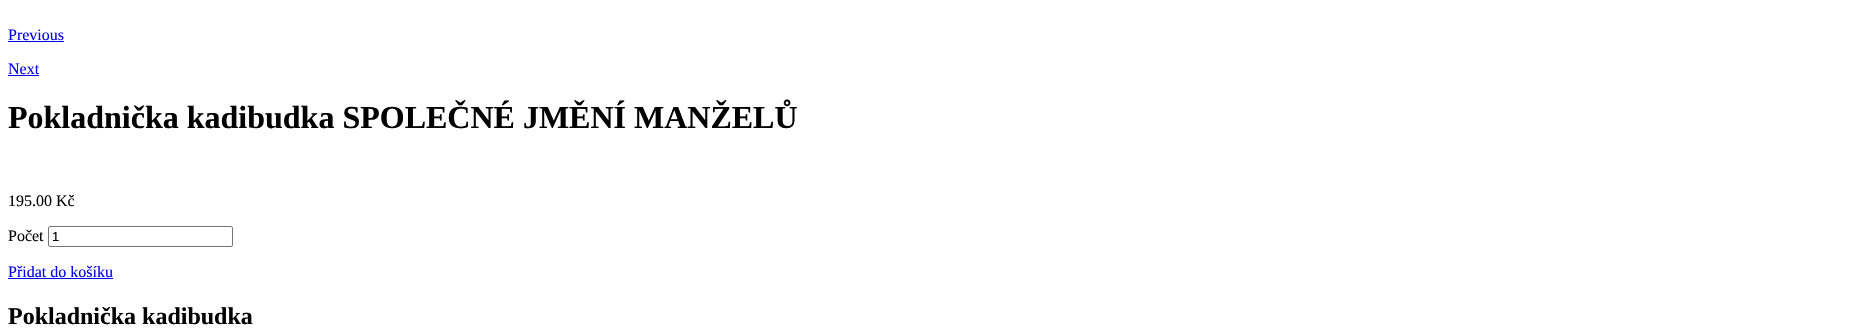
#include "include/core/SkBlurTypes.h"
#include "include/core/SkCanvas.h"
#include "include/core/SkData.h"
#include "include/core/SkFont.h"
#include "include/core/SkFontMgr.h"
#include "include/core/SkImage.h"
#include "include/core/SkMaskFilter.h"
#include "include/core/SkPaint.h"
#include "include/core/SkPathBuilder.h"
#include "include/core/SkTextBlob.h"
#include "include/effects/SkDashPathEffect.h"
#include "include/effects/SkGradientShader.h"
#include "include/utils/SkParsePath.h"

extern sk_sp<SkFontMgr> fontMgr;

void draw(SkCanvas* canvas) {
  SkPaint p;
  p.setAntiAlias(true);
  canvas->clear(SK_ColorWHITE);
  p.setColor(SkColorSetRGB(0, 0, 238));
  canvas->drawRect(SkRect::MakeLTRB(8, 41, 64, 42), p);
  canvas->drawRect(SkRect::MakeLTRB(8, 75, 39, 76), p);
  p.setStyle(SkPaint::kStroke_Style);
  p.setStrokeWidth(1);
  p.setColor(SkColorSetRGB(118, 118, 118));
  canvas->drawRoundRect(SkRect::MakeLTRB(48.5f, 226.5f, 232.5f, 246.5f), 1.5f, 1.5f, p);
  p.setStyle(SkPaint::kFill_Style);
  p.setColor(SkColorSetRGB(0, 0, 238));
  canvas->drawRect(SkRect::MakeLTRB(8, 278, 113, 279), p);
  SkFont font1(fontMgr->matchFamilyStyle("Liberation Serif", SkFontStyle::Normal()), 16);
  font1.setSubpixel(true);
  canvas->drawString("Previous", 8, 40, font1, p);
  canvas->drawString("Next", 8, 74, font1, p);
  SkFont font2(fontMgr->matchFamilyStyle("Liberation Serif", SkFontStyle::Bold()), 32);
  font2.setSubpixel(true);
  p.setColor(SK_ColorBLACK);
  canvas->drawString("Pokladnička kadibudka SPOLEČNÉ JMĚNÍ MANŽELŮ", 8, 128, font2, p);
  canvas->drawString("195.00 Kč", 8, 206, font1, p);
  canvas->drawString("Počet", 8, 241, font1, p);
  SkFont font3(fontMgr->matchFamilyStyle("Liberation Sans", SkFontStyle::Normal()), 13);
  font3.setSubpixel(true);
  canvas->drawString("1", 52, 241, font3, p);
  p.setColor(SkColorSetRGB(0, 0, 238));
  canvas->drawString("Přidat do košíku", 8, 277, font1, p);
  SkFont font4(fontMgr->matchFamilyStyle("Liberation Serif", SkFontStyle::Bold()), 24);
  font4.setSubpixel(true);
  p.setColor(SK_ColorBLACK);
  canvas->drawString("Pokladnička kadibudka", 8, 324, font4, p);
}
